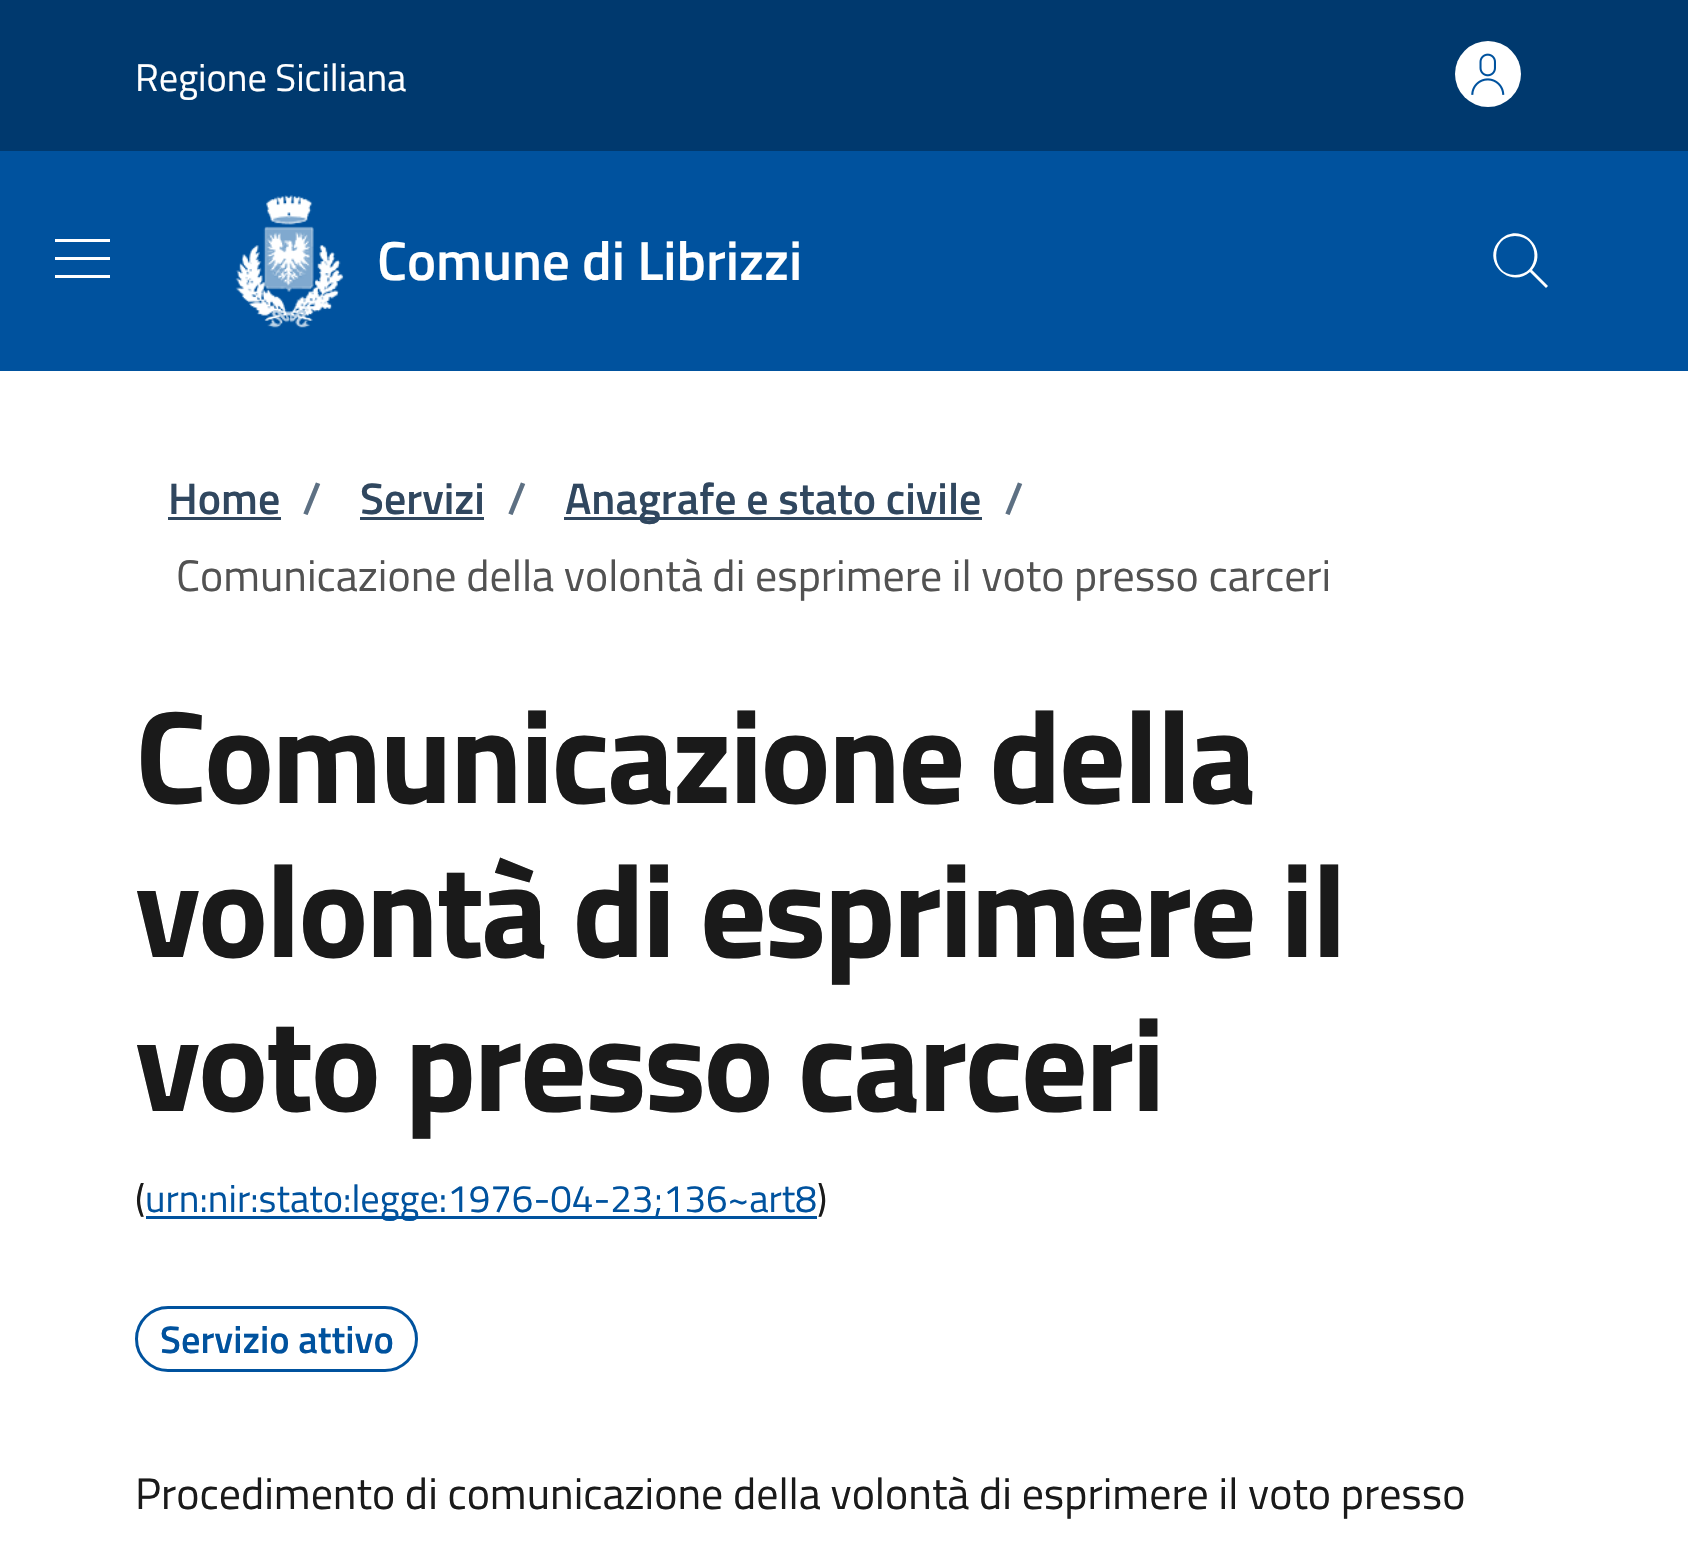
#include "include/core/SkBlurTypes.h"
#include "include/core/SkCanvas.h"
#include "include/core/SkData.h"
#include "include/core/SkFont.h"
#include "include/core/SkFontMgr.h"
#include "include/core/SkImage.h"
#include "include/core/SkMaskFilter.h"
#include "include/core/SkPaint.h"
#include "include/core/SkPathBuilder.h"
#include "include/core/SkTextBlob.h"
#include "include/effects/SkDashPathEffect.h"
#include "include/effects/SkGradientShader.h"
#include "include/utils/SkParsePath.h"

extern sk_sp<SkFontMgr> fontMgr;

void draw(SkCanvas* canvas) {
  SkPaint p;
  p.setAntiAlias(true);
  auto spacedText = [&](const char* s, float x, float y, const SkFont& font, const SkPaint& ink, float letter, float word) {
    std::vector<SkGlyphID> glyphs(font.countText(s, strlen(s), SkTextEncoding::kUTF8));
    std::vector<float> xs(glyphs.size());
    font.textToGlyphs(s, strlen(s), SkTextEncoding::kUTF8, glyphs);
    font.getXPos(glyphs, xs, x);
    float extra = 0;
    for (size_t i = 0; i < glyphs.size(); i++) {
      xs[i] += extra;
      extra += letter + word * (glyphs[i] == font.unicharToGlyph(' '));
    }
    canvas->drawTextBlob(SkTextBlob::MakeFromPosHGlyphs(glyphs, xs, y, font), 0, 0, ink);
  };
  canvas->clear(SK_ColorWHITE);
  p.setColor(SkColorSetRGB(0, 57, 110));
  canvas->drawRect(SkRect::MakeLTRB(0, 0, 1688, 151), p);
  p.setColor(SK_ColorWHITE);
  canvas->drawCircle(1488, 74, 33, p);
  canvas->drawImageRect(SkImages::DeferredFromEncodedData(SkData::MakeFromFileName("images/1.png")), SkRect::MakeLTRB(1471, 53, 1505, 95), SkSamplingOptions());
  p.setColor(SkColorSetRGB(0, 82, 158));
  canvas->drawRect(SkRect::MakeLTRB(0, 151, 1688, 371), p);
  p.setColor(SK_ColorWHITE);
  canvas->drawPath(SkPathBuilder().moveTo(110, 239).lineTo(110, 242).lineTo(55, 242).lineTo(55, 239).close().moveTo(55, 260).lineTo(110, 260).lineTo(110, 257).lineTo(55, 257).close().moveTo(55, 278).lineTo(110, 278).lineTo(110, 275).lineTo(55, 275).close().detach(), p);
  canvas->drawImageRect(SkImages::DeferredFromEncodedData(SkData::MakeFromFileName("images/2.png")), SkRect::MakeLTRB(235, 195, 344, 328), SkSamplingOptions());
  canvas->drawPath(SkPathBuilder().moveTo(1548, 286).lineTo(1532, 270).cubicTo(1550, 249, 1520, 220, 1500, 240).cubicTo(1480, 260, 1509, 290, 1530, 272).lineTo(1546, 288).close().moveTo(1515, 275).cubicTo(1490, 275, 1490, 236, 1515, 236).cubicTo(1541, 236, 1541, 275, 1515, 275).close().detach(), p);
  p.setColor(SkColorSetRGB(48, 71, 95));
  canvas->drawRect(SkRect::MakeLTRB(168, 517, 281, 520), p);
  canvas->drawRect(SkRect::MakeLTRB(360, 517, 484, 520), p);
  canvas->drawRect(SkRect::MakeLTRB(564, 517, 982, 520), p);
  p.setColor(SkColorSetRGB(0, 82, 158));
  canvas->drawRect(SkRect::MakeLTRB(146, 1216, 817, 1219), p);
  p.setStyle(SkPaint::kStroke_Style);
  p.setStrokeWidth(3);
  canvas->drawRoundRect(SkRect::MakeLTRB(136.5f, 1307.5f, 416.5f, 1370.5f), 31.5f, 31.5f, p);
  SkFont font1(fontMgr->matchFamilyStyle("Titillium Web", SkFontStyle::Normal()), 38.5f);
  font1.setSubpixel(true);
  p.setStyle(SkPaint::kFill_Style);
  p.setColor(SK_ColorWHITE);
  canvas->drawString("Regione Siciliana", 135, 91, font1, p);
  SkFont font2(fontMgr->matchFamilyStyle("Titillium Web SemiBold", SkFontStyle(600, SkFontStyle::kNormal_Width, SkFontStyle::kUpright_Slant)), 55);
  font2.setSubpixel(true);
  canvas->drawString("Comune di Librizzi", 377, 280, font2, p);
  SkFont font3(fontMgr->matchFamilyStyle("Titillium Web SemiBold", SkFontStyle(600, SkFontStyle::kNormal_Width, SkFontStyle::kUpright_Slant)), 44);
  font3.setSubpixel(true);
  p.setColor(SkColorSetRGB(48, 71, 95));
  canvas->drawString("Home", 168, 514, font3, p);
  p.setColor(SkColorSetRGB(93, 112, 131));
  canvas->drawString("/", 302, 514, font3, p);
  p.setColor(SkColorSetRGB(48, 71, 95));
  canvas->drawString("Servizi", 360, 514, font3, p);
  p.setColor(SkColorSetRGB(93, 112, 131));
  canvas->drawString("/", 507, 514, font3, p);
  p.setColor(SkColorSetRGB(48, 71, 95));
  canvas->drawString("Anagrafe e stato civile", 565, 514, font3, p);
  p.setColor(SkColorSetRGB(93, 112, 131));
  canvas->drawString("/", 1004, 514, font3, p);
  SkFont font4(fontMgr->matchFamilyStyle("Titillium Web", SkFontStyle::Normal()), 44);
  font4.setSubpixel(true);
  p.setColor(SkColorSetRGB(82, 82, 82));
  canvas->drawString("Comunicazione della volontà di esprimere il voto presso carceri", 176, 591, font4, p);
  SkFont font5(fontMgr->matchFamilyStyle("Titillium Web", SkFontStyle::Bold()), 132);
  font5.setSubpixel(true);
  p.setColor(SkColorSetRGB(26, 26, 26));
  spacedText("Comunicazione della", 135, 803, font5, p, -2.75f, 0);
  spacedText("volontà di esprimere il", 135, 957, font5, p, -2.75f, 0);
  spacedText("voto presso carceri", 135, 1111, font5, p, -2.75f, 0);
  canvas->drawString("(", 135, 1212, font1, p);
  p.setColor(SkColorSetRGB(0, 82, 158));
  canvas->drawString("urn:nir:stato:legge:1976-04-23;136~art8", 145, 1212, font1, p);
  p.setColor(SkColorSetRGB(26, 26, 26));
  canvas->drawString(")", 817, 1212, font1, p);
  SkFont font6(fontMgr->matchFamilyStyle("Titillium Web SemiBold", SkFontStyle(600, SkFontStyle::kNormal_Width, SkFontStyle::kUpright_Slant)), 38.5f);
  font6.setSubpixel(true);
  p.setColor(SkColorSetRGB(0, 82, 158));
  canvas->drawString("Servizio attivo", 160, 1353, font6, p);
  p.setColor(SkColorSetRGB(26, 26, 26));
  canvas->drawString("Procedimento di comunicazione della volontà di esprimere il voto presso", 135, 1509, font4, p);
}
